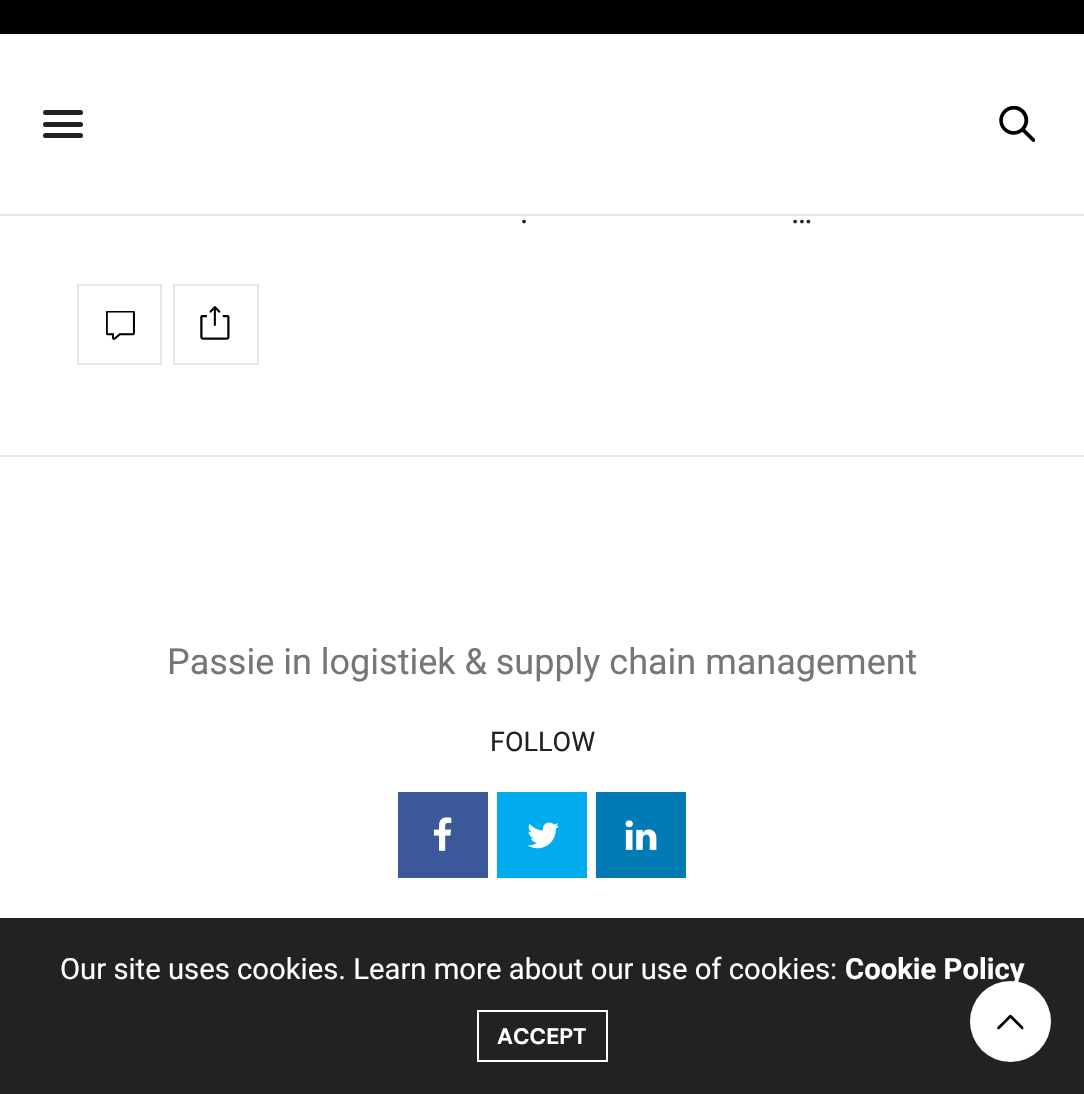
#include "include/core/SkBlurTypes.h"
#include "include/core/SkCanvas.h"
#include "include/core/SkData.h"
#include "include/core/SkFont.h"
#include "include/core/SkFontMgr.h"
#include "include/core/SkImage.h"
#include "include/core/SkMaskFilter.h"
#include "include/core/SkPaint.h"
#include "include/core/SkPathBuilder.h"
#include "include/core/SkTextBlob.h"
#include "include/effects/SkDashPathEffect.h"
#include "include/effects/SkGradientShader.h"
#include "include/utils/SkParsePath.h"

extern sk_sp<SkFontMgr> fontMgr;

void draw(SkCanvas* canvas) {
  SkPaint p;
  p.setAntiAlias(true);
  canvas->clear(SK_ColorWHITE);
  p.setColor(SK_ColorBLACK);
  canvas->drawRect(SkRect::MakeLTRB(0, 0, 1084, 34), p);
  p.setColor(SkColorSetRGB(230, 230, 230));
  canvas->drawRect(SkRect::MakeLTRB(0, 214, 1084, 216), p);
  p.setColor(SkColorSetRGB(34, 34, 34));
  canvas->drawRoundRect(SkRect::MakeLTRB(43, 110, 83, 115), 2.5f, 2.5f, p);
  canvas->drawRoundRect(SkRect::MakeLTRB(43, 122, 83, 127), 2.5f, 2.5f, p);
  canvas->drawRoundRect(SkRect::MakeLTRB(43, 133, 83, 138), 2.5f, 2.5f, p);
  canvas->drawImageRect(SkImages::DeferredFromEncodedData(SkData::MakeFromFileName("images/1.png")), SkRect::MakeLTRB(999, 106, 1035, 142), SkSamplingOptions());
  p.setStyle(SkPaint::kStroke_Style);
  p.setStrokeWidth(2);
  p.setColor(SkColorSetRGB(230, 230, 230));
  canvas->drawRect(SkRect::MakeLTRB(78, 285, 161, 364), p);
  canvas->drawImageRect(SkImages::DeferredFromEncodedData(SkData::MakeFromFileName("images/2.png")), SkRect::MakeLTRB(106, 311, 135, 340), SkSamplingOptions());
  canvas->drawRect(SkRect::MakeLTRB(174, 285, 258, 364), p);
  canvas->drawImageRect(SkImages::DeferredFromEncodedData(SkData::MakeFromFileName("images/3.png")), SkRect::MakeLTRB(200, 306, 230, 340), SkSamplingOptions());
  p.setStyle(SkPaint::kFill_Style);
  canvas->drawRect(SkRect::MakeLTRB(0, 455, 1084, 457), p);
  p.setColor(SkColorSetRGB(59, 89, 152));
  canvas->drawRect(SkRect::MakeLTRB(398, 792, 488, 878), p);
  canvas->drawImageRect(SkImages::DeferredFromEncodedData(SkData::MakeFromFileName("images/4.png")), SkRect::MakeLTRB(433, 817, 452, 851), SkSamplingOptions());
  p.setColor(SkColorSetRGB(0, 172, 237));
  canvas->drawRect(SkRect::MakeLTRB(497, 792, 587, 878), p);
  canvas->drawImageRect(SkImages::DeferredFromEncodedData(SkData::MakeFromFileName("images/5.png")), SkRect::MakeLTRB(527, 822, 559, 849), SkSamplingOptions());
  p.setColor(SkColorSetRGB(0, 123, 182));
  canvas->drawRect(SkRect::MakeLTRB(596, 792, 686, 878), p);
  canvas->drawImageRect(SkImages::DeferredFromEncodedData(SkData::MakeFromFileName("images/6.png")), SkRect::MakeLTRB(625, 820, 657, 850), SkSamplingOptions());
  p.setColor(SkColorSetRGB(34, 34, 34));
  canvas->drawRect(SkRect::MakeLTRB(0, 918, 1084, 1094), p);
  p.setStyle(SkPaint::kStroke_Style);
  p.setColor(SK_ColorWHITE);
  canvas->drawRect(SkRect::MakeLTRB(478, 1011, 607, 1061), p);
  p.setStyle(SkPaint::kFill_Style);
  canvas->drawCircle(1010.5f, 1021.5f, 40.5f, p);
  canvas->drawImageRect(SkImages::DeferredFromEncodedData(SkData::MakeFromFileName("images/7.png")), SkRect::MakeLTRB(997, 1014, 1024, 1030), SkSamplingOptions());
  SkFont font1(fontMgr->matchFamilyStyle("Roboto", SkFontStyle::Normal()), 32);
  font1.setSubpixel(true);
  p.setColor(SkColorSetRGB(34, 34, 34));
  canvas->drawString(".", 520, 223, font1, p);
  canvas->drawString("…", 791, 223, font1, p);
  SkFont font2(fontMgr->matchFamilyStyle("Roboto", SkFontStyle::Normal()), 36);
  font2.setSubpixel(true);
  p.setColor(SkColorSetRGB(118, 118, 118));
  canvas->drawString("Passie in logistiek & supply chain management", 167, 674, font2, p);
  SkFont font3(fontMgr->matchFamilyStyle("Roboto", SkFontStyle::Normal()), 27);
  font3.setSubpixel(true);
  p.setColor(SkColorSetRGB(34, 34, 34));
  canvas->drawString("FOLLOW", 490, 751, font3, p);
  SkFont font4(fontMgr->matchFamilyStyle("Roboto", SkFontStyle::Normal()), 29.25f);
  font4.setSubpixel(true);
  p.setColor(SK_ColorWHITE);
  canvas->drawString("Our site uses cookies. Learn more about our use of cookies:", 60, 979, font4, p);
  SkFont font5(fontMgr->matchFamilyStyle("Roboto", SkFontStyle::Bold()), 29.25f);
  font5.setSubpixel(true);
  canvas->drawString("Cookie Policy", 845, 979, font5, p);
  SkFont font6(fontMgr->matchFamilyStyle("DM Sans", SkFontStyle::Bold()), 22.5f);
  font6.setSubpixel(true);
  canvas->drawString("ACCEPT", 497, 1044, font6, p);
}
